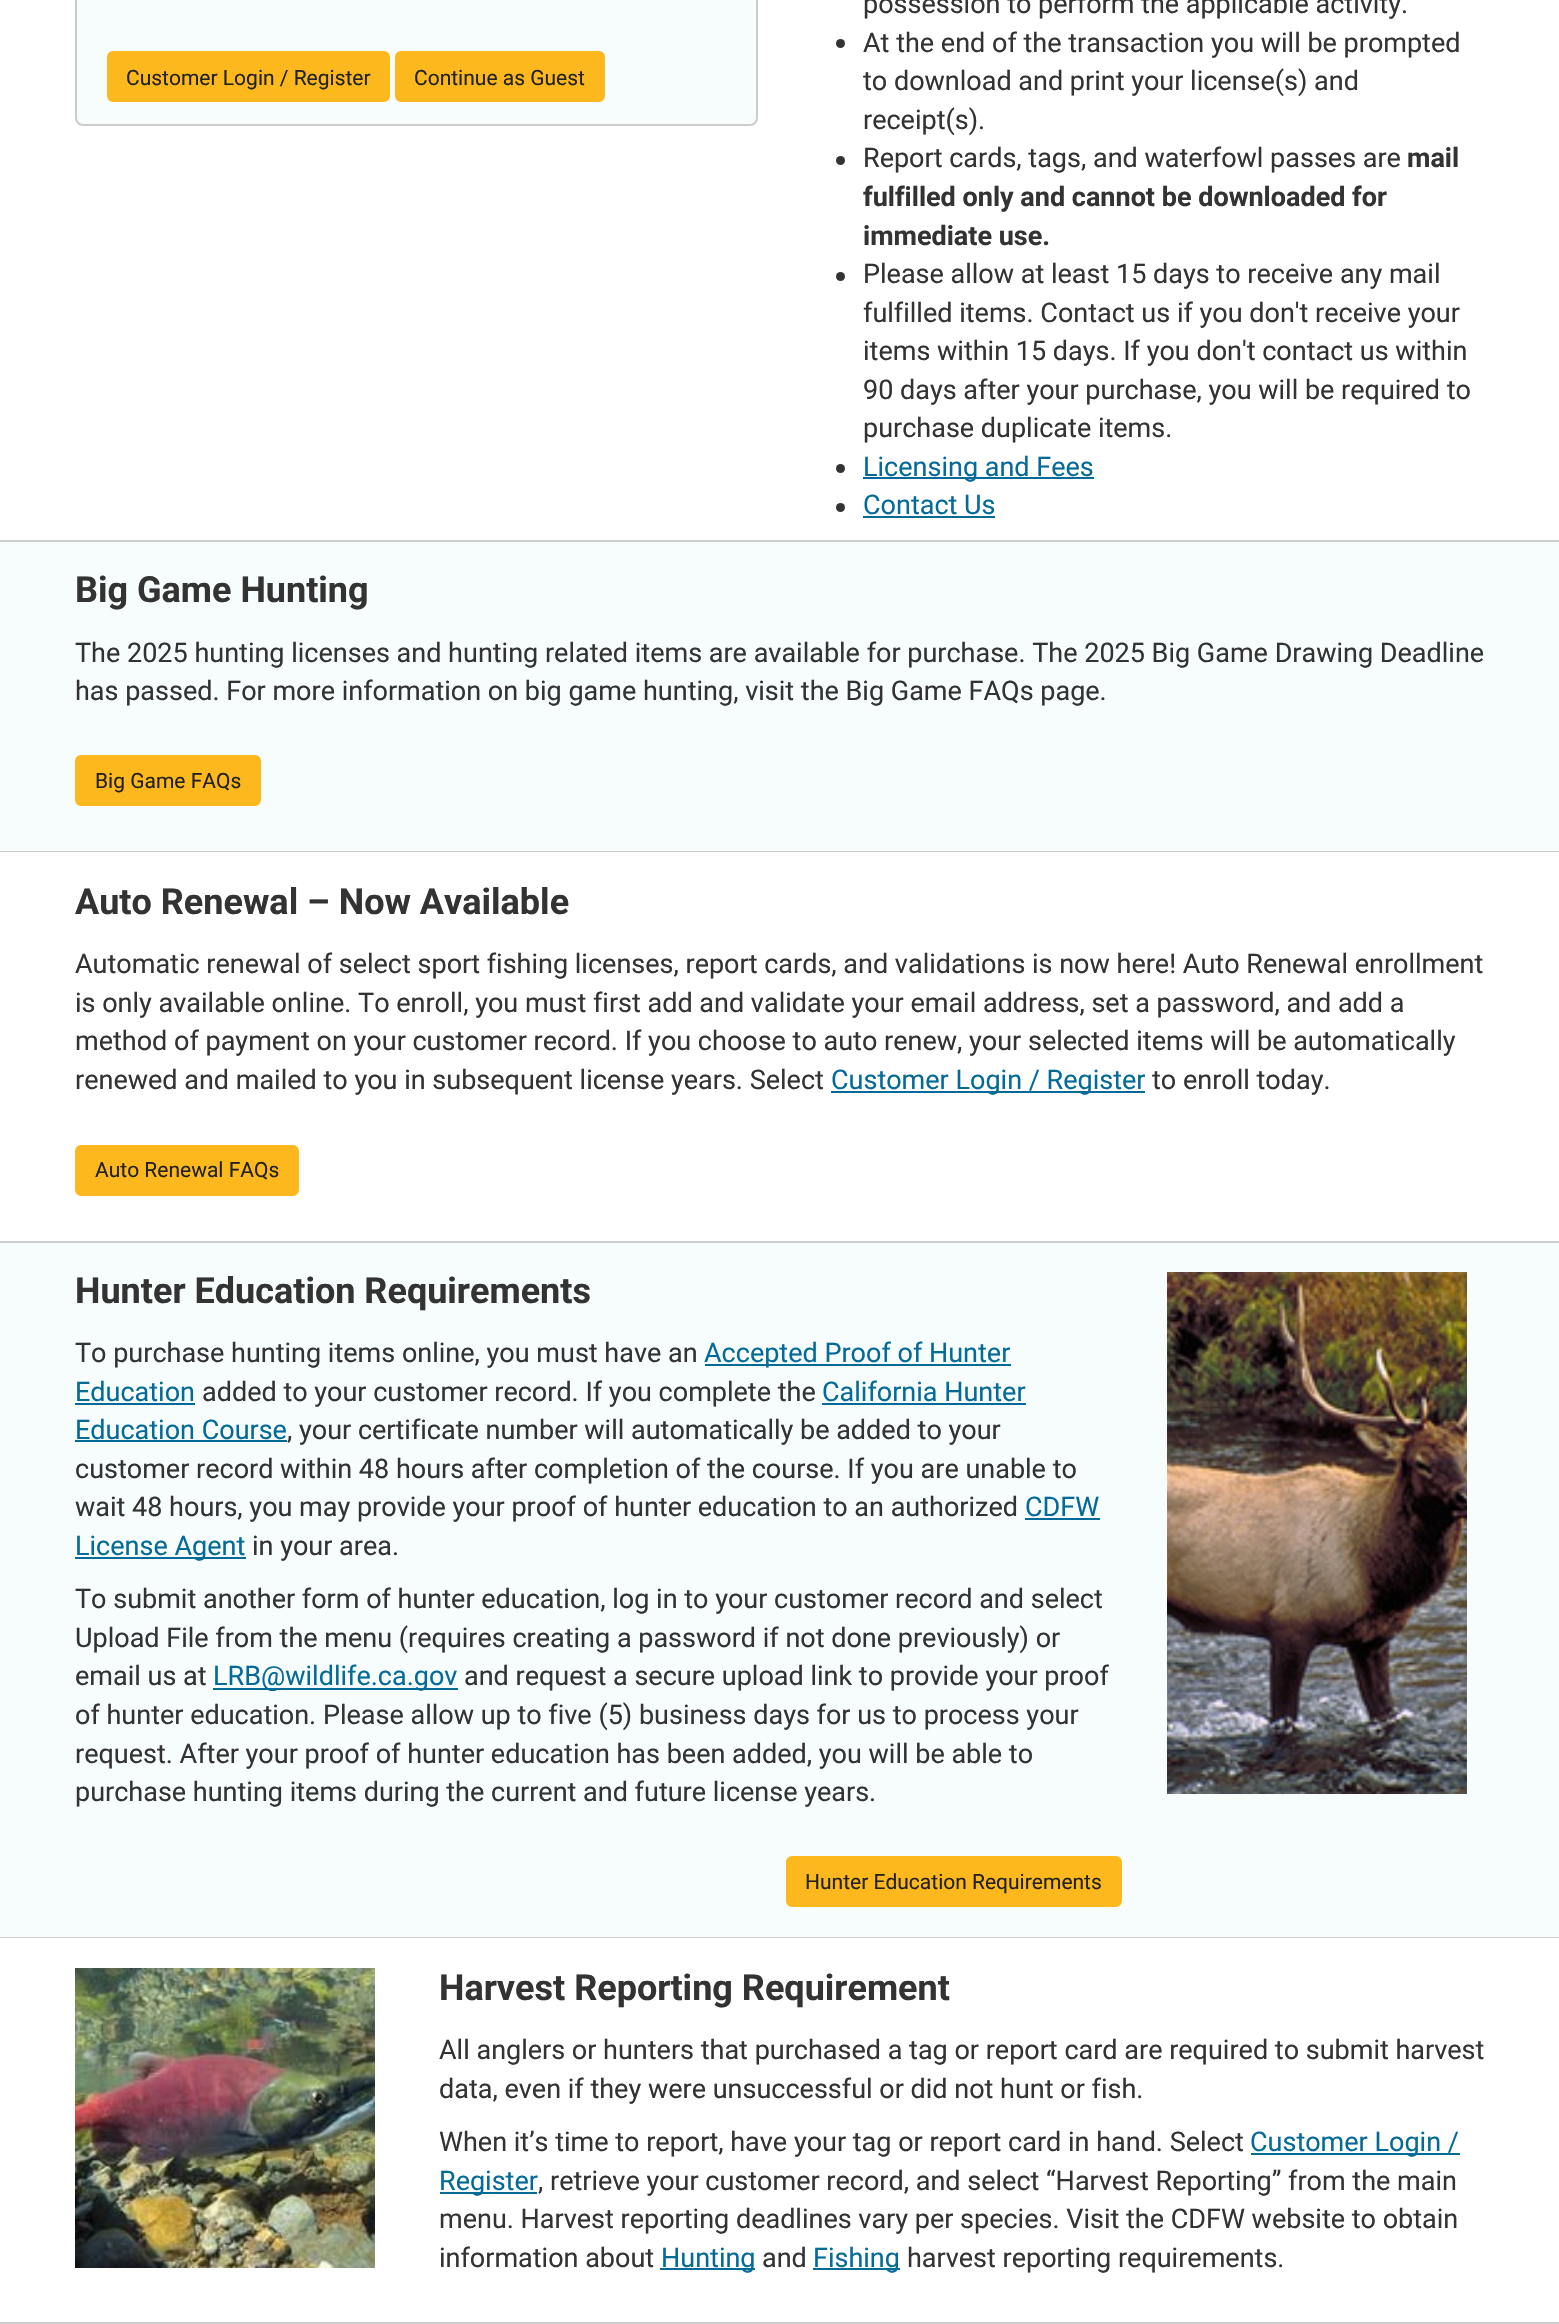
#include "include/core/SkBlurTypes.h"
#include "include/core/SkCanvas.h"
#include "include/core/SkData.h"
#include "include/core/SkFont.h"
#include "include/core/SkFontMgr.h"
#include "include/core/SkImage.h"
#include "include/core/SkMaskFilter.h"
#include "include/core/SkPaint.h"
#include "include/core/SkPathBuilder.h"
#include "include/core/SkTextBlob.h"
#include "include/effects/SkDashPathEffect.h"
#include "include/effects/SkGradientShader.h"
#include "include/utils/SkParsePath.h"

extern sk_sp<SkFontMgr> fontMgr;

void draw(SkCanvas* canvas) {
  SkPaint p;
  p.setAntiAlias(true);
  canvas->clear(SK_ColorWHITE);
  p.setColor(SkColorSetRGB(247, 252, 253));
  canvas->drawRoundRect(SkRect::MakeLTRB(76, -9, 757, 125), 7, 7, p);
  p.setStyle(SkPaint::kStroke_Style);
  p.setStrokeWidth(2);
  p.setColor(SkColorSetRGB(204, 204, 204));
  canvas->drawRoundRect(SkRect::MakeLTRB(76, -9, 757, 125), 7, 7, p);
  p.setStyle(SkPaint::kFill_Style);
  p.setColor(SkColorSetRGB(253, 184, 30));
  canvas->drawRoundRect(SkRect::MakeLTRB(108, 52, 389, 101), 5, 5, p);
  p.setStyle(SkPaint::kStroke_Style);
  canvas->drawRoundRect(SkRect::MakeLTRB(108, 52, 389, 101), 5, 5, p);
  p.setStyle(SkPaint::kFill_Style);
  canvas->drawRoundRect(SkRect::MakeLTRB(396, 52, 604, 101), 5, 5, p);
  p.setStyle(SkPaint::kStroke_Style);
  canvas->drawRoundRect(SkRect::MakeLTRB(396, 52, 604, 101), 5, 5, p);
  p.setStyle(SkPaint::kFill_Style);
  p.setColor(SkColorSetRGB(51, 51, 51));
  canvas->drawCircle(840.5f, 43.5f, 4.5f, p);
  canvas->drawCircle(840.5f, 160.5f, 4.5f, p);
  canvas->drawCircle(840.5f, 276.5f, 4.5f, p);
  canvas->drawCircle(840.5f, 468.5f, 4.5f, p);
  p.setColor(SkColorSetRGB(4, 107, 153));
  canvas->drawRect(SkRect::MakeLTRB(863, 477, 1094, 479), p);
  p.setColor(SkColorSetRGB(51, 51, 51));
  canvas->drawCircle(840.5f, 507.5f, 4.5f, p);
  p.setColor(SkColorSetRGB(4, 107, 153));
  canvas->drawRect(SkRect::MakeLTRB(863, 516, 995, 518), p);
  p.setColor(SkColorSetRGB(247, 252, 253));
  canvas->drawRect(SkRect::MakeLTRB(0, 542, 1559, 1937), p);
  p.setColor(SkColorSetRGB(204, 204, 204));
  canvas->drawRect(SkRect::MakeLTRB(0, 540, 1559, 542), p);
  canvas->drawRect(SkRect::MakeLTRB(0, 851, 1559, 852), p);
  p.setColor(SkColorSetRGB(253, 184, 30));
  canvas->drawRoundRect(SkRect::MakeLTRB(76, 756, 260, 805), 5, 5, p);
  p.setStyle(SkPaint::kStroke_Style);
  canvas->drawRoundRect(SkRect::MakeLTRB(76, 756, 260, 805), 5, 5, p);
  p.setStyle(SkPaint::kFill_Style);
  p.setColor(SK_ColorWHITE);
  canvas->drawRect(SkRect::MakeLTRB(0, 852, 1559, 1241), p);
  p.setColor(SkColorSetRGB(204, 204, 204));
  canvas->drawRect(SkRect::MakeLTRB(0, 1241, 1559, 1243), p);
  p.setColor(SkColorSetRGB(4, 107, 153));
  canvas->drawRect(SkRect::MakeLTRB(831, 1091, 1145, 1093), p);
  p.setColor(SkColorSetRGB(253, 184, 30));
  canvas->drawRoundRect(SkRect::MakeLTRB(76, 1146, 298, 1195), 5, 5, p);
  p.setStyle(SkPaint::kStroke_Style);
  canvas->drawRoundRect(SkRect::MakeLTRB(76, 1146, 298, 1195), 5, 5, p);
  p.setStyle(SkPaint::kFill_Style);
  p.setColor(SkColorSetRGB(204, 204, 204));
  canvas->drawRect(SkRect::MakeLTRB(0, 1937, 1559, 1938), p);
  p.setColor(SkColorSetRGB(4, 107, 153));
  canvas->drawRect(SkRect::MakeLTRB(705, 1364, 1011, 1366), p);
  canvas->drawRect(SkRect::MakeLTRB(75, 1403, 195, 1405), p);
  canvas->drawRect(SkRect::MakeLTRB(822, 1403, 1026, 1405), p);
  canvas->drawRect(SkRect::MakeLTRB(75, 1440, 287, 1442), p);
  canvas->drawRect(SkRect::MakeLTRB(1025, 1518, 1100, 1520), p);
  canvas->drawRect(SkRect::MakeLTRB(75, 1557, 246, 1559), p);
  canvas->drawRect(SkRect::MakeLTRB(213, 1688, 458, 1690), p);
  p.setColor(SkColorSetRGB(253, 184, 30));
  canvas->drawRoundRect(SkRect::MakeLTRB(787, 1857, 1121, 1906), 5, 5, p);
  p.setStyle(SkPaint::kStroke_Style);
  canvas->drawRoundRect(SkRect::MakeLTRB(787, 1857, 1121, 1906), 5, 5, p);
  canvas->drawImageRect(SkImages::DeferredFromEncodedData(SkData::MakeFromFileName("images/1.png")), SkRect::MakeLTRB(1167, 1272, 1467, 1794), SkSamplingOptions());
  p.setStyle(SkPaint::kFill_Style);
  p.setColor(SkColorSetRGB(204, 204, 204));
  canvas->drawRect(SkRect::MakeLTRB(0, 2322, 1559, 2324), p);
  canvas->drawImageRect(SkImages::DeferredFromEncodedData(SkData::MakeFromFileName("images/2.png")), SkRect::MakeLTRB(75, 1968, 375, 2268), SkSamplingOptions());
  p.setColor(SkColorSetRGB(4, 107, 153));
  canvas->drawRect(SkRect::MakeLTRB(1251, 2153, 1460, 2155), p);
  canvas->drawRect(SkRect::MakeLTRB(440, 2192, 537, 2194), p);
  canvas->drawRect(SkRect::MakeLTRB(660, 2268, 755, 2270), p);
  canvas->drawRect(SkRect::MakeLTRB(813, 2268, 900, 2270), p);
  SkFont font1(fontMgr->matchFamilyStyle("Roboto", SkFontStyle::Normal()), 21);
  font1.setSubpixel(true);
  p.setColor(SkColorSetRGB(34, 34, 34));
  canvas->drawString("Customer Login / Register", 126, 85, font1, p);
  canvas->drawString("Continue as Guest", 414, 85, font1, p);
  SkFont font2(fontMgr->matchFamilyStyle("Roboto", SkFontStyle::Normal()), 27);
  font2.setSubpixel(true);
  p.setColor(SkColorSetRGB(51, 51, 51));
  canvas->drawString("possession to perform the applicable activity.", 863, 13, font2, p);
  canvas->drawString("At the end of the transaction you will be prompted", 863, 52, font2, p);
  canvas->drawString("to download and print your license(s) and", 863, 90, font2, p);
  canvas->drawString("receipt(s).", 863, 129, font2, p);
  canvas->drawString("Report cards, tags, and waterfowl passes are", 863, 167, font2, p);
  SkFont font3(fontMgr->matchFamilyStyle("Roboto", SkFontStyle::Bold()), 27);
  font3.setSubpixel(true);
  canvas->drawString("mail", 1407, 167, font3, p);
  canvas->drawString("fulfilled only and cannot be downloaded for", 863, 206, font3, p);
  canvas->drawString("immediate use.", 863, 245, font3, p);
  canvas->drawString("Please allow at least 15 days to receive any mail", 863, 283, font2, p);
  canvas->drawString("fulfilled items. Contact us if you don't receive your", 863, 322, font2, p);
  canvas->drawString("items within 15 days. If you don't contact us within", 863, 360, font2, p);
  canvas->drawString("90 days after your purchase, you will be required to", 863, 399, font2, p);
  canvas->drawString("purchase duplicate items.", 863, 437, font2, p);
  p.setColor(SkColorSetRGB(4, 107, 153));
  canvas->drawString("Licensing and Fees", 863, 476, font2, p);
  canvas->drawString("Contact Us", 863, 514, font2, p);
  SkFont font4(fontMgr->matchFamilyStyle("Roboto", SkFontStyle::Bold()), 36);
  font4.setSubpixel(true);
  p.setColor(SkColorSetRGB(51, 51, 51));
  canvas->drawString("Big Game Hunting", 75, 602, font4, p);
  canvas->drawString("The 2025 hunting licenses and hunting related items are available for purchase. The 2025 Big Game Drawing Deadline", 75, 662, font2, p);
  canvas->drawString("has passed. For more information on big game hunting, visit the Big Game FAQs page.", 75, 700, font2, p);
  p.setColor(SkColorSetRGB(34, 34, 34));
  canvas->drawString("Big Game FAQs", 95, 788, font1, p);
  p.setColor(SkColorSetRGB(51, 51, 51));
  canvas->drawString("Auto Renewal – Now Available", 75, 914, font4, p);
  canvas->drawString("Automatic renewal of select sport fishing licenses, report cards, and validations is now here! Auto Renewal enrollment", 75, 973, font2, p);
  canvas->drawString("is only available online. To enroll, you must first add and validate your email address, set a password, and add a", 75, 1012, font2, p);
  canvas->drawString("method of payment on your customer record. If you choose to auto renew, your selected items will be automatically", 75, 1050, font2, p);
  canvas->drawString("renewed and mailed to you in subsequent license years. Select", 75, 1089, font2, p);
  p.setColor(SkColorSetRGB(4, 107, 153));
  canvas->drawString("Customer Login / Register", 831, 1089, font2, p);
  p.setColor(SkColorSetRGB(51, 51, 51));
  canvas->drawString("to enroll today.", 1152, 1089, font2, p);
  p.setColor(SkColorSetRGB(34, 34, 34));
  canvas->drawString("Auto Renewal FAQs", 95, 1177, font1, p);
  p.setColor(SkColorSetRGB(51, 51, 51));
  canvas->drawString("Hunter Education Requirements", 75, 1303, font4, p);
  canvas->drawString("To purchase hunting items online, you must have an", 75, 1362, font2, p);
  p.setColor(SkColorSetRGB(4, 107, 153));
  canvas->drawString("Accepted Proof of Hunter", 704, 1362, font2, p);
  canvas->drawString("Education", 75, 1401, font2, p);
  p.setColor(SkColorSetRGB(51, 51, 51));
  canvas->drawString("added to your customer record. If you complete the", 202, 1401, font2, p);
  p.setColor(SkColorSetRGB(4, 107, 153));
  canvas->drawString("California Hunter", 822, 1401, font2, p);
  canvas->drawString("Education Course", 75, 1439, font2, p);
  p.setColor(SkColorSetRGB(51, 51, 51));
  canvas->drawString(", your certificate number will automatically be added to your", 287, 1439, font2, p);
  canvas->drawString("customer record within 48 hours after completion of the course. If you are unable to", 75, 1478, font2, p);
  canvas->drawString("wait 48 hours, you may provide your proof of hunter education to an authorized", 75, 1516, font2, p);
  p.setColor(SkColorSetRGB(4, 107, 153));
  canvas->drawString("CDFW", 1025, 1516, font2, p);
  canvas->drawString("License Agent", 75, 1555, font2, p);
  p.setColor(SkColorSetRGB(51, 51, 51));
  canvas->drawString("in your area.", 252, 1555, font2, p);
  canvas->drawString("To submit another form of hunter education, log in to your customer record and select", 75, 1608, font2, p);
  canvas->drawString("Upload File from the menu (requires creating a password if not done previously) or", 75, 1647, font2, p);
  canvas->drawString("email us at", 75, 1685, font2, p);
  p.setColor(SkColorSetRGB(4, 107, 153));
  canvas->drawString("LRB@wildlife.ca.gov", 213, 1685, font2, p);
  p.setColor(SkColorSetRGB(51, 51, 51));
  canvas->drawString("and request a secure upload link to provide your proof", 464, 1685, font2, p);
  canvas->drawString("of hunter education. Please allow up to five (5) business days for us to process your", 75, 1724, font2, p);
  canvas->drawString("request. After your proof of hunter education has been added, you will be able to", 75, 1763, font2, p);
  canvas->drawString("purchase hunting items during the current and future license years.", 75, 1801, font2, p);
  p.setColor(SkColorSetRGB(34, 34, 34));
  canvas->drawString("Hunter Education Requirements", 805, 1889, font1, p);
  p.setColor(SkColorSetRGB(51, 51, 51));
  canvas->drawString("Harvest Reporting Requirement", 439, 2000, font4, p);
  canvas->drawString("All anglers or hunters that purchased a tag or report card are required to submit harvest", 439, 2059, font2, p);
  canvas->drawString("data, even if they were unsuccessful or did not hunt or fish.", 439, 2098, font2, p);
  canvas->drawString("When it’s time to report, have your tag or report card in hand. Select", 439, 2151, font2, p);
  p.setColor(SkColorSetRGB(4, 107, 153));
  canvas->drawString("Customer Login /", 1250, 2151, font2, p);
  canvas->drawString("Register", 439, 2190, font2, p);
  p.setColor(SkColorSetRGB(51, 51, 51));
  canvas->drawString(", retrieve your customer record, and select “Harvest Reporting” from the main", 538, 2190, font2, p);
  canvas->drawString("menu. Harvest reporting deadlines vary per species. Visit the CDFW website to obtain", 439, 2228, font2, p);
  canvas->drawString("information about", 439, 2267, font2, p);
  p.setColor(SkColorSetRGB(4, 107, 153));
  canvas->drawString("Hunting", 661, 2267, font2, p);
  p.setColor(SkColorSetRGB(51, 51, 51));
  canvas->drawString("and", 762, 2267, font2, p);
  p.setColor(SkColorSetRGB(4, 107, 153));
  canvas->drawString("Fishing", 813, 2267, font2, p);
  p.setColor(SkColorSetRGB(51, 51, 51));
  canvas->drawString("harvest reporting requirements.", 907, 2267, font2, p);
}
